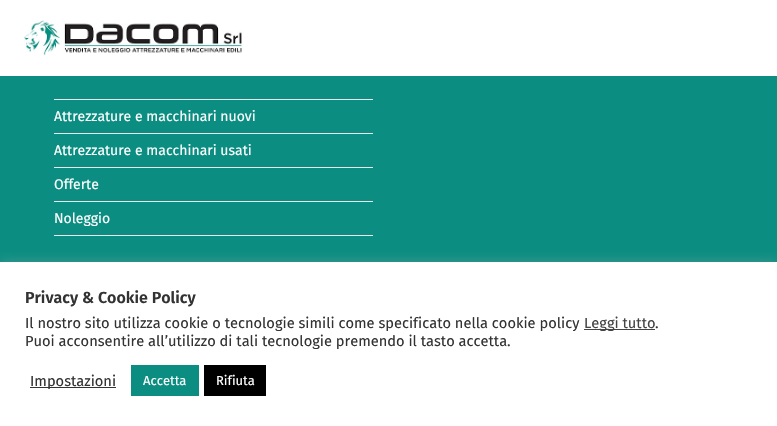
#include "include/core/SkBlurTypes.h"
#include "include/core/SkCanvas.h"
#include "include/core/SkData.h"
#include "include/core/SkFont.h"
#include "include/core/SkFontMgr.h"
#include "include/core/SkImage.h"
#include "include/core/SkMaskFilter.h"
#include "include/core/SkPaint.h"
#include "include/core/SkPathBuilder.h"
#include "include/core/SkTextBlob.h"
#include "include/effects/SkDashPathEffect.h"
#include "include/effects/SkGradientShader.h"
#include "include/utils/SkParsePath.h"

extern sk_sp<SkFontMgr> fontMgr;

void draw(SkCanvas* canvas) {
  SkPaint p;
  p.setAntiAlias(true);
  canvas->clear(SkColorSetRGB(11, 141, 129));
  p.setColor(SK_ColorWHITE);
  canvas->drawRect(SkRect::MakeLTRB(0, 0, 777, 76), p);
  canvas->drawImageRect(SkImages::DeferredFromEncodedData(SkData::MakeFromFileName("images/1.png")), SkRect::MakeLTRB(24, 20, 244, 56), SkSamplingOptions());
  p.setColor(SkColorSetRGB(233, 233, 233));
  canvas->drawRect(SkRect::MakeLTRB(54, 99, 373, 100), p);
  canvas->drawRect(SkRect::MakeLTRB(54, 133, 373, 134), p);
  canvas->drawRect(SkRect::MakeLTRB(54, 167, 373, 168), p);
  canvas->drawRect(SkRect::MakeLTRB(54, 201, 373, 202), p);
  canvas->drawRect(SkRect::MakeLTRB(54, 235, 373, 236), p);
  p.setColor(SkColorSetARGB(77, 172, 171, 171));
  p.setMaskFilter(SkMaskFilter::MakeBlur(kNormal_SkBlurStyle, 5));
  canvas->drawRect(SkRect::MakeLTRB(0, 261, 777, 425), p);
  p.setMaskFilter(nullptr);
  p.setColor(SK_ColorWHITE);
  canvas->drawRect(SkRect::MakeLTRB(0, 262, 777, 426), p);
  p.setColor(SkColorSetRGB(68, 68, 68));
  canvas->drawRect(SkRect::MakeLTRB(584, 329, 655, 330), p);
  p.setColor(SkColorSetRGB(51, 51, 51));
  canvas->drawRect(SkRect::MakeLTRB(30, 387, 116, 388), p);
  p.setColor(SkColorSetRGB(11, 141, 129));
  canvas->drawRect(SkRect::MakeLTRB(131, 365, 199, 396), p);
  p.setColor(SK_ColorBLACK);
  canvas->drawRect(SkRect::MakeLTRB(204, 365, 266, 396), p);
  SkFont font1(fontMgr->matchFamilyStyle("Fira Sans", SkFontStyle::Normal()), 14);
  font1.setSubpixel(true);
  p.setColor(SK_ColorWHITE);
  canvas->drawString("Attrezzature e macchinari nuovi", 54, 121, font1, p);
  canvas->drawString("Attrezzature e macchinari usati", 54, 155, font1, p);
  canvas->drawString("Offerte", 54, 189, font1, p);
  canvas->drawString("Noleggio", 54, 223, font1, p);
  SkFont font2(fontMgr->matchFamilyStyle("Fira Sans", SkFontStyle(600, SkFontStyle::kNormal_Width, SkFontStyle::kUpright_Slant)), 16);
  font2.setSubpixel(true);
  p.setColor(SkColorSetRGB(51, 51, 51));
  canvas->drawString("Privacy & Cookie Policy", 25, 303, font2, p);
  SkFont font3(fontMgr->matchFamilyStyle("Fira Sans", SkFontStyle::Normal()), 14.65f);
  font3.setSubpixel(true);
  canvas->drawString("Il nostro sito utilizza cookie o tecnologie simili come specificato nella cookie policy", 25, 328, font3, p);
  p.setColor(SkColorSetRGB(68, 68, 68));
  canvas->drawString("Leggi tutto", 584, 328, font3, p);
  p.setColor(SkColorSetRGB(51, 51, 51));
  canvas->drawString(".", 655, 328, font3, p);
  canvas->drawString("Puoi acconsentire all’utilizzo di tali tecnologie premendo il tasto accetta.", 25, 346, font3, p);
  canvas->drawString("Impostazioni", 30, 386, font3, p);
  SkFont font4(fontMgr->matchFamilyStyle("Fira Sans", SkFontStyle::Normal()), 13);
  font4.setSubpixel(true);
  p.setColor(SK_ColorWHITE);
  canvas->drawString("Accetta", 143, 385, font4, p);
  canvas->drawString("Rifiuta", 216, 385, font4, p);
}
